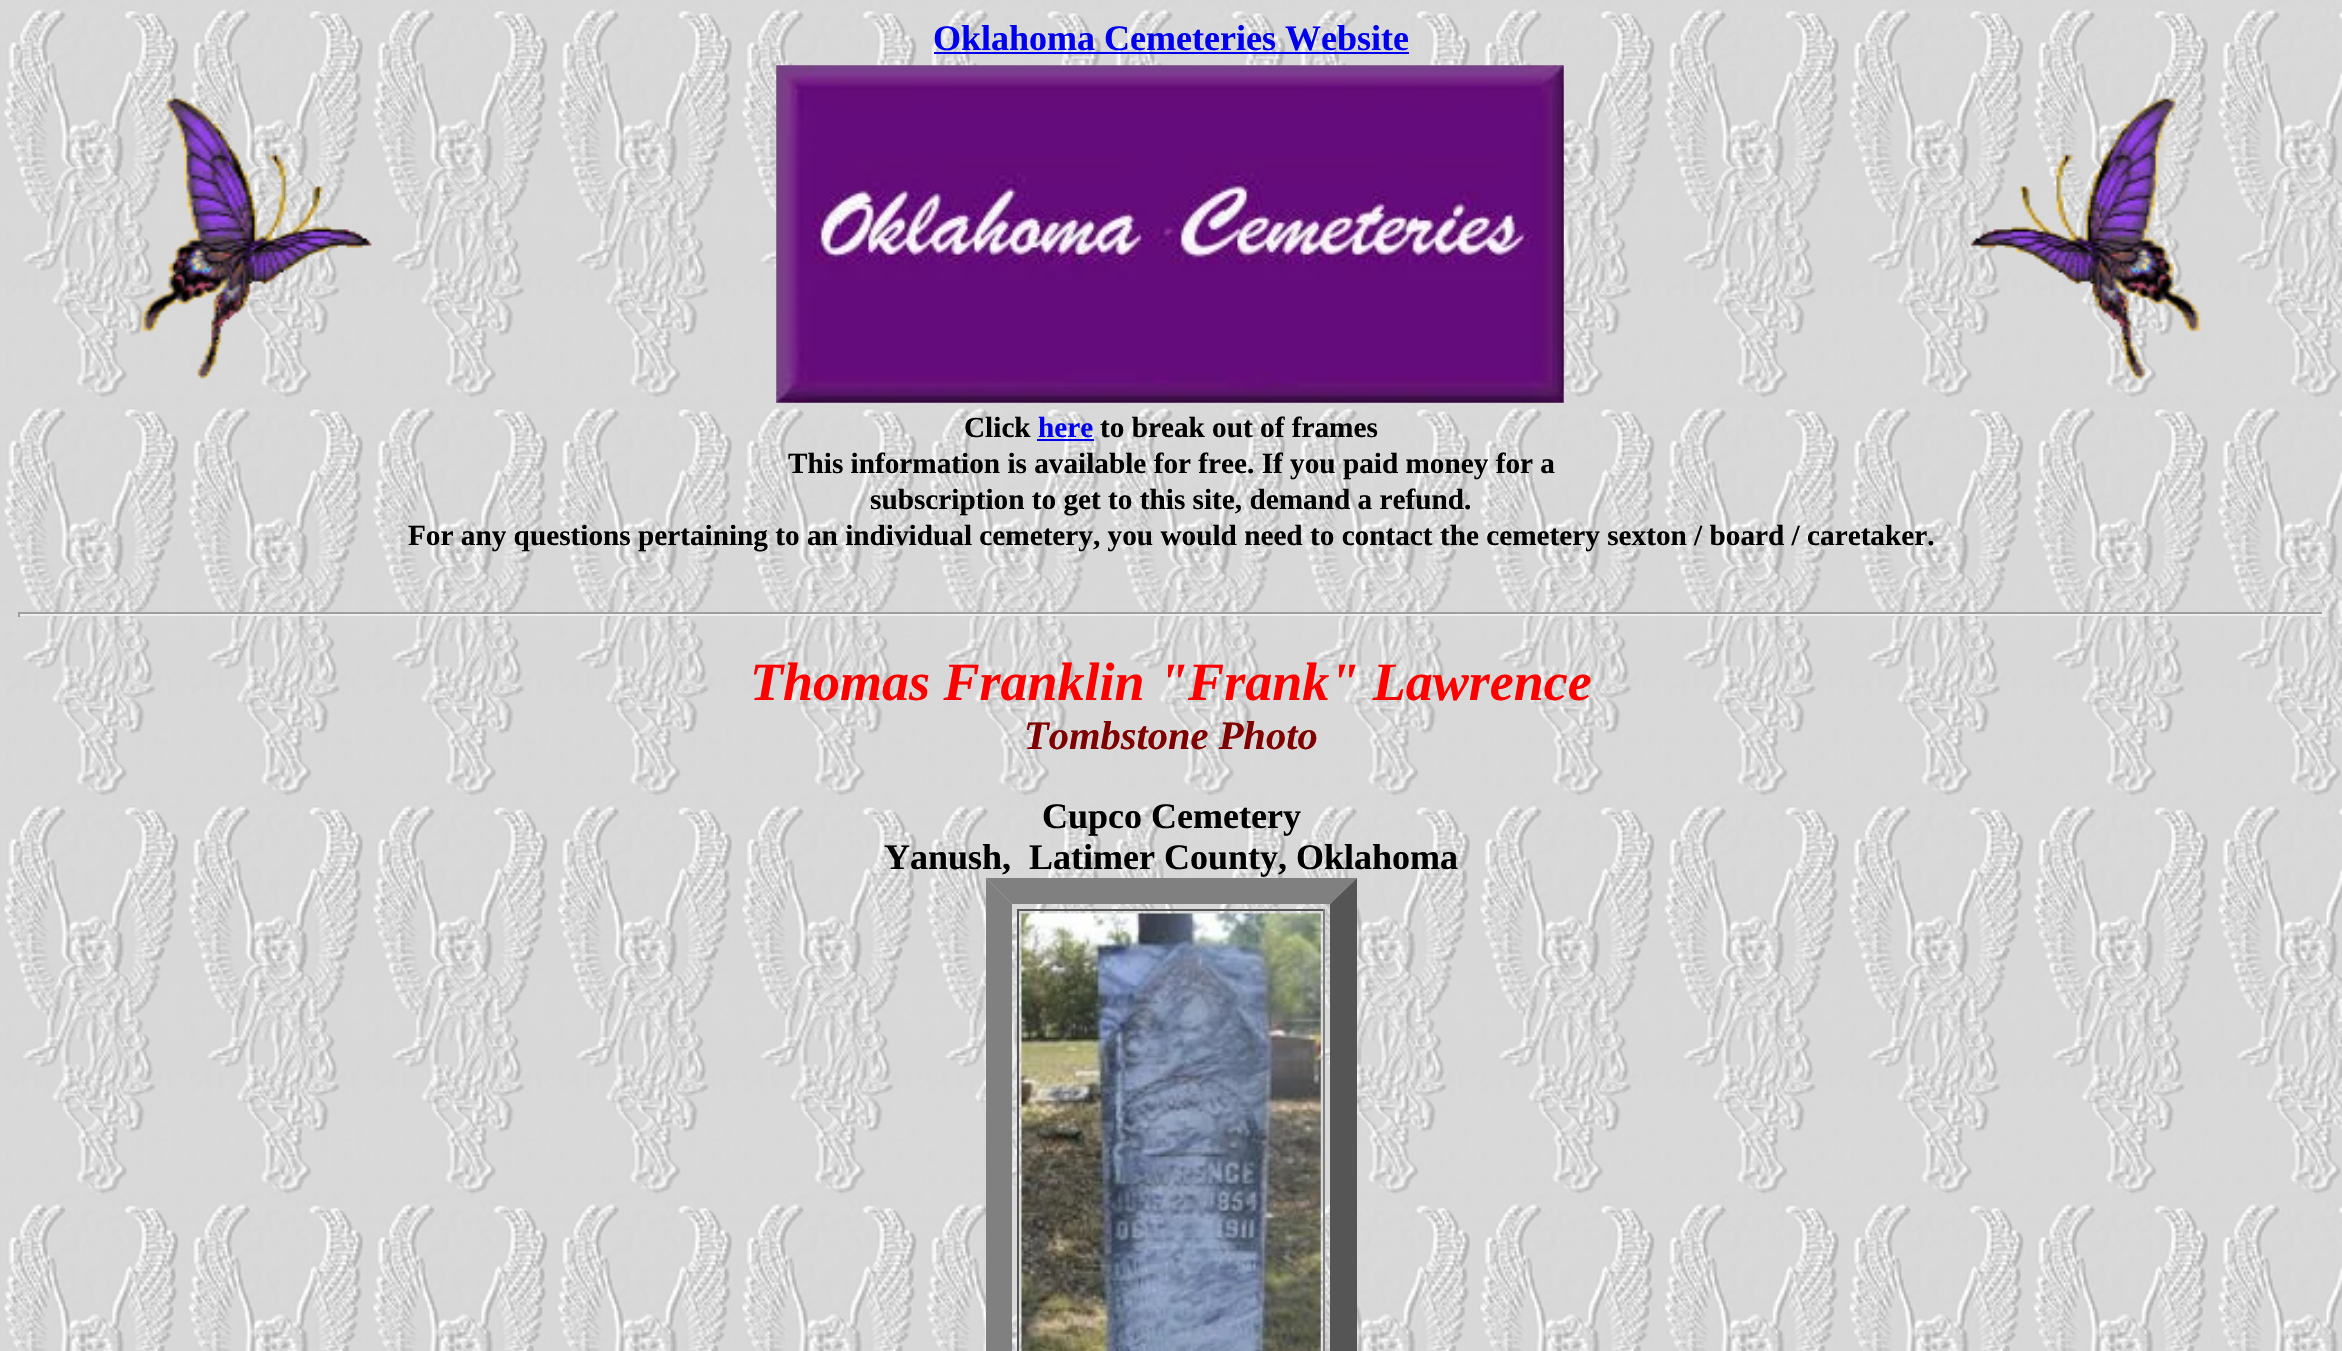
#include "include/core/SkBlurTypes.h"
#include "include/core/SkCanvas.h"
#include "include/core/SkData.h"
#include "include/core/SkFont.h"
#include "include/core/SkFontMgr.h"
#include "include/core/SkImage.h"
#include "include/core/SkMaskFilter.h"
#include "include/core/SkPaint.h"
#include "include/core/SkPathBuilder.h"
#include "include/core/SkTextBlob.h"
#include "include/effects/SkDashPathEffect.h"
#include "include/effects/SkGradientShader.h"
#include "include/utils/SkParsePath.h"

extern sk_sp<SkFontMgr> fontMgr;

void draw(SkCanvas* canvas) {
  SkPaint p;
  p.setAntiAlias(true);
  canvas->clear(SK_ColorWHITE);
  canvas->drawImageRect(SkImages::DeferredFromEncodedData(SkData::MakeFromFileName("images/1.png")), SkRect::MakeLTRB(0, 0, 2342, 1351), SkSamplingOptions());
  p.setColor(SkColorSetRGB(0, 0, 238));
  canvas->drawRect(SkRect::MakeLTRB(934, 52, 1409, 54), p);
  canvas->drawImageRect(SkImages::DeferredFromEncodedData(SkData::MakeFromFileName("images/2.png")), SkRect::MakeLTRB(141, 98, 372, 379), SkSamplingOptions());
  canvas->drawImageRect(SkImages::DeferredFromEncodedData(SkData::MakeFromFileName("images/3.png")), SkRect::MakeLTRB(776, 65, 1564, 403), SkSamplingOptions());
  canvas->drawImageRect(SkImages::DeferredFromEncodedData(SkData::MakeFromFileName("images/4.png")), SkRect::MakeLTRB(1970, 98, 2202, 379), SkSamplingOptions());
  canvas->drawRect(SkRect::MakeLTRB(1037, 439, 1094, 441), p);
  p.setColor(SkColorSetRGB(159, 159, 159));
  canvas->drawRect(SkRect::MakeLTRB(18, 612, 2324, 614), p);
  p.setColor(SkColorSetRGB(238, 238, 238));
  canvas->drawRect(SkRect::MakeLTRB(2322, 612, 2324, 617), p);
  canvas->drawRect(SkRect::MakeLTRB(18, 614, 2324, 616), p);
  p.setColor(SkColorSetRGB(159, 159, 159));
  canvas->drawRect(SkRect::MakeLTRB(18, 612, 20, 617), p);
  p.setColor(SkColorSetRGB(128, 128, 128));
  canvas->drawPath(SkPathBuilder().moveTo(986, 878).lineTo(1357, 878).lineTo(1330, 904).lineTo(1012, 904).close().detach(), p);
  p.setColor(SkColorSetRGB(85, 85, 85));
  canvas->drawPath(SkPathBuilder().moveTo(1357, 878).lineTo(1357, 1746).lineTo(1330, 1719).lineTo(1330, 904).close().detach(), p);
  p.setColor(SkColorSetRGB(128, 128, 128));
  canvas->drawPath(SkPathBuilder().moveTo(986, 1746).lineTo(986, 878).lineTo(1012, 904).lineTo(1012, 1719).close().detach(), p);
  p.setColor(SkColorSetRGB(85, 85, 85));
  canvas->drawRect(SkRect::MakeLTRB(1017, 909, 1325, 911), p);
  p.setColor(SkColorSetRGB(128, 128, 128));
  canvas->drawRect(SkRect::MakeLTRB(1323, 909, 1325, 1351), p);
  p.setColor(SkColorSetRGB(85, 85, 85));
  canvas->drawRect(SkRect::MakeLTRB(1017, 909, 1019, 1351), p);
  canvas->drawImageRect(SkImages::DeferredFromEncodedData(SkData::MakeFromFileName("images/5.png")), SkRect::MakeLTRB(1021, 913, 1321, 1351), SkSamplingOptions());
  SkFont font1(fontMgr->matchFamilyStyle("Liberation Serif", SkFontStyle::Bold()), 36);
  font1.setSubpixel(true);
  p.setColor(SkColorSetRGB(0, 0, 238));
  canvas->drawString("Oklahoma Cemeteries Website", 933, 50, font1, p);
  SkFont font2(fontMgr->matchFamilyStyle("Liberation Serif", SkFontStyle::Bold()), 29.25f);
  font2.setSubpixel(true);
  p.setColor(SK_ColorBLACK);
  canvas->drawString("Click", 964, 437, font2, p);
  p.setColor(SkColorSetRGB(0, 0, 238));
  canvas->drawString("here", 1038, 437, font2, p);
  p.setColor(SK_ColorBLACK);
  canvas->drawString("to break out of frames", 1100, 437, font2, p);
  canvas->drawString("This information is available for free. If you paid money for a", 788, 473, font2, p);
  canvas->drawString("subscription to get to this site, demand a refund.", 870, 509, font2, p);
  canvas->drawString("For any questions pertaining to an individual cemetery, you would need to contact the cemetery sexton / board / caretaker.", 408, 545, font2, p);
  SkFont font3(fontMgr->matchFamilyStyle("Liberation Serif", SkFontStyle::BoldItalic()), 54);
  font3.setSubpixel(true);
  p.setColor(SkColorSetRGB(255, 0, 0));
  canvas->drawString("Thomas Franklin \"Frank\" Lawrence", 750, 700, font3, p);
  SkFont font4(fontMgr->matchFamilyStyle("Liberation Serif", SkFontStyle::BoldItalic()), 40.5f);
  font4.setSubpixel(true);
  p.setColor(SkColorSetRGB(128, 0, 0));
  canvas->drawString("Tombstone Photo", 1024, 749, font4, p);
  p.setColor(SK_ColorBLACK);
  canvas->drawString("Cupco Cemetery", 1042, 828, font1, p);
  canvas->drawString("Yanush,  Latimer County, Oklahoma", 884, 869, font1, p);
}
